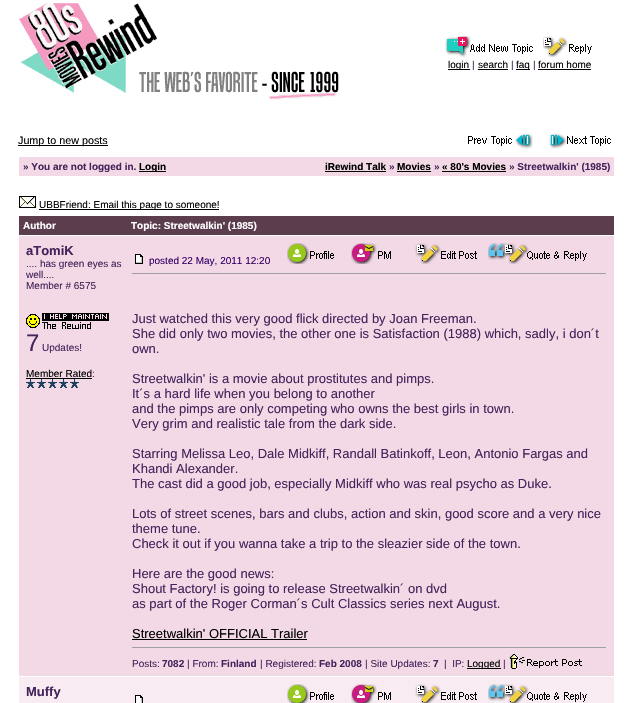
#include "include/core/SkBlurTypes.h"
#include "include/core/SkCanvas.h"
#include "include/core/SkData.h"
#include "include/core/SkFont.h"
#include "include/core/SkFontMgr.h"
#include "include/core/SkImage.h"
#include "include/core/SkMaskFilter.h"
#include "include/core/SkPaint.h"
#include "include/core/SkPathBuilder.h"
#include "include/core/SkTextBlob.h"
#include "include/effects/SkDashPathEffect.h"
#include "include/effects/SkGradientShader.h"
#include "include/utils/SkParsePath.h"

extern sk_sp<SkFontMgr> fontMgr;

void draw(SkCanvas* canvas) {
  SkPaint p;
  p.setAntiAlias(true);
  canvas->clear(SK_ColorWHITE);
  canvas->drawImageRect(SkImages::DeferredFromEncodedData(SkData::MakeFromFileName("images/1.png")), SkRect::MakeLTRB(19, 3, 339, 100), SkSamplingOptions());
  canvas->drawImageRect(SkImages::DeferredFromEncodedData(SkData::MakeFromFileName("images/2.png")), SkRect::MakeLTRB(445, 36, 533, 57), SkSamplingOptions());
  canvas->drawImageRect(SkImages::DeferredFromEncodedData(SkData::MakeFromFileName("images/3.png")), SkRect::MakeLTRB(543, 36, 592, 57), SkSamplingOptions());
  p.setColor(SK_ColorBLACK);
  canvas->drawRect(SkRect::MakeLTRB(448, 69, 470, 70), p);
  canvas->drawRect(SkRect::MakeLTRB(478, 69, 508, 70), p);
  canvas->drawRect(SkRect::MakeLTRB(516, 69, 530, 70), p);
  canvas->drawRect(SkRect::MakeLTRB(538, 69, 591, 70), p);
  canvas->drawRect(SkRect::MakeLTRB(18, 145, 108, 146), p);
  canvas->drawImageRect(SkImages::DeferredFromEncodedData(SkData::MakeFromFileName("images/4.png")), SkRect::MakeLTRB(468, 133, 533, 149), SkSamplingOptions());
  canvas->drawImageRect(SkImages::DeferredFromEncodedData(SkData::MakeFromFileName("images/5.png")), SkRect::MakeLTRB(549, 133, 611, 149), SkSamplingOptions());
  p.setColor(SkColorSetRGB(242, 217, 229));
  canvas->drawRect(SkRect::MakeLTRB(19, 157, 614, 176), p);
  p.setColor(SK_ColorBLACK);
  canvas->drawRect(SkRect::MakeLTRB(139, 171, 166, 172), p);
  canvas->drawRect(SkRect::MakeLTRB(325, 171, 386, 172), p);
  canvas->drawRect(SkRect::MakeLTRB(397, 171, 431, 172), p);
  canvas->drawRect(SkRect::MakeLTRB(442, 171, 506, 172), p);
  canvas->drawImageRect(SkImages::DeferredFromEncodedData(SkData::MakeFromFileName("images/6.png")), SkRect::MakeLTRB(19, 196, 36, 208), SkSamplingOptions());
  canvas->drawRect(SkRect::MakeLTRB(39, 209, 219, 210), p);
  p.setColor(SkColorSetRGB(92, 61, 77));
  canvas->drawRect(SkRect::MakeLTRB(19, 216, 614, 235), p);
  p.setColor(SkColorSetRGB(242, 217, 229));
  canvas->drawRect(SkRect::MakeLTRB(19, 236, 614, 676), p);
  canvas->drawImageRect(SkImages::DeferredFromEncodedData(SkData::MakeFromFileName("images/7.png")), SkRect::MakeLTRB(26, 313, 109, 329), SkSamplingOptions());
  p.setColor(SK_ColorBLACK);
  canvas->drawRect(SkRect::MakeLTRB(26, 378, 92, 379), p);
  canvas->drawImageRect(SkImages::DeferredFromEncodedData(SkData::MakeFromFileName("images/8.png")), SkRect::MakeLTRB(26, 379, 79, 388), SkSamplingOptions());
  canvas->drawImageRect(SkImages::DeferredFromEncodedData(SkData::MakeFromFileName("images/9.png")), SkRect::MakeLTRB(135, 254, 143, 264), SkSamplingOptions());
  canvas->drawImageRect(SkImages::DeferredFromEncodedData(SkData::MakeFromFileName("images/10.png")), SkRect::MakeLTRB(287, 243, 334, 264), SkSamplingOptions());
  canvas->drawImageRect(SkImages::DeferredFromEncodedData(SkData::MakeFromFileName("images/11.png")), SkRect::MakeLTRB(351, 243, 391, 264), SkSamplingOptions());
  canvas->drawImageRect(SkImages::DeferredFromEncodedData(SkData::MakeFromFileName("images/12.png")), SkRect::MakeLTRB(415, 243, 477, 264), SkSamplingOptions());
  canvas->drawImageRect(SkImages::DeferredFromEncodedData(SkData::MakeFromFileName("images/13.png")), SkRect::MakeLTRB(488, 243, 587, 264), SkSamplingOptions());
  p.setColor(SkColorSetRGB(159, 159, 159));
  canvas->drawRect(SkRect::MakeLTRB(132, 273, 607, 274), p);
  p.setColor(SkColorSetRGB(238, 238, 238));
  canvas->drawRect(SkRect::MakeLTRB(606, 273, 607, 274), p);
  p.setColor(SK_ColorBLACK);
  canvas->drawRect(SkRect::MakeLTRB(132, 639, 307, 640), p);
  p.setColor(SkColorSetRGB(159, 159, 159));
  canvas->drawRect(SkRect::MakeLTRB(132, 647, 607, 648), p);
  p.setColor(SkColorSetRGB(238, 238, 238));
  canvas->drawRect(SkRect::MakeLTRB(606, 647, 607, 648), p);
  p.setColor(SK_ColorBLACK);
  canvas->drawRect(SkRect::MakeLTRB(467, 668, 501, 669), p);
  canvas->drawImageRect(SkImages::DeferredFromEncodedData(SkData::MakeFromFileName("images/14.png")), SkRect::MakeLTRB(509, 654, 582, 669), SkSamplingOptions());
  p.setColor(SkColorSetRGB(248, 236, 242));
  canvas->drawRect(SkRect::MakeLTRB(19, 677, 614, 703), p);
  canvas->drawImageRect(SkImages::DeferredFromEncodedData(SkData::MakeFromFileName("images/15.png")), SkRect::MakeLTRB(135, 695, 143, 703), SkSamplingOptions());
  canvas->drawImageRect(SkImages::DeferredFromEncodedData(SkData::MakeFromFileName("images/16.png")), SkRect::MakeLTRB(287, 684, 334, 703), SkSamplingOptions());
  canvas->drawImageRect(SkImages::DeferredFromEncodedData(SkData::MakeFromFileName("images/17.png")), SkRect::MakeLTRB(351, 684, 391, 703), SkSamplingOptions());
  canvas->drawImageRect(SkImages::DeferredFromEncodedData(SkData::MakeFromFileName("images/18.png")), SkRect::MakeLTRB(415, 684, 477, 703), SkSamplingOptions());
  canvas->drawImageRect(SkImages::DeferredFromEncodedData(SkData::MakeFromFileName("images/19.png")), SkRect::MakeLTRB(488, 684, 587, 703), SkSamplingOptions());
  SkFont font1(fontMgr->matchFamilyStyle("Liberation Sans", SkFontStyle::Normal()), 10);
  font1.setSubpixel(true);
  p.setColor(SK_ColorBLACK);
  canvas->drawString("login", 448, 68, font1, p);
  p.setColor(SkColorSetRGB(69, 35, 92));
  canvas->drawString("|", 472, 68, font1, p);
  p.setColor(SK_ColorBLACK);
  canvas->drawString("search", 478, 68, font1, p);
  p.setColor(SkColorSetRGB(69, 35, 92));
  canvas->drawString("|", 511, 68, font1, p);
  p.setColor(SK_ColorBLACK);
  canvas->drawString("faq", 516, 68, font1, p);
  p.setColor(SkColorSetRGB(69, 35, 92));
  canvas->drawString("|", 533, 68, font1, p);
  p.setColor(SK_ColorBLACK);
  canvas->drawString("forum home", 538, 68, font1, p);
  SkFont font2(fontMgr->matchFamilyStyle("Liberation Sans", SkFontStyle::Normal()), 10.75f);
  font2.setSubpixel(true);
  canvas->drawString("Jump to new posts", 18, 144, font2, p);
  SkFont font3(fontMgr->matchFamilyStyle("Liberation Sans", SkFontStyle::Bold()), 10);
  font3.setSubpixel(true);
  p.setColor(SkColorSetRGB(69, 35, 92));
  canvas->drawString("» You are not logged in.", 23, 170, font3, p);
  p.setColor(SK_ColorBLACK);
  canvas->drawString("Login", 139, 170, font3, p);
  canvas->drawString("iRewind Talk", 325, 170, font3, p);
  p.setColor(SkColorSetRGB(69, 35, 92));
  canvas->drawString("»", 389, 170, font3, p);
  p.setColor(SK_ColorBLACK);
  canvas->drawString("Movies", 397, 170, font3, p);
  p.setColor(SkColorSetRGB(69, 35, 92));
  canvas->drawString("»", 434, 170, font3, p);
  p.setColor(SK_ColorBLACK);
  canvas->drawString("« 80's Movies", 442, 170, font3, p);
  p.setColor(SkColorSetRGB(69, 35, 92));
  canvas->drawString("» Streetwalkin' (1985)", 509, 170, font3, p);
  p.setColor(SK_ColorBLACK);
  canvas->drawString("UBBFriend: Email this page to someone!", 39, 208, font1, p);
  p.setColor(SK_ColorWHITE);
  canvas->drawString("Author", 23, 229, font3, p);
  canvas->drawString("Topic: Streetwalkin' (1985)", 131, 229, font3, p);
  SkFont font4(fontMgr->matchFamilyStyle("Liberation Sans", SkFontStyle::Bold()), 13);
  font4.setSubpixel(true);
  p.setColor(SkColorSetRGB(69, 35, 92));
  canvas->drawString("aTomiK", 26, 255, font4, p);
  canvas->drawString(".... has green eyes as", 26, 267, font1, p);
  canvas->drawString("well....", 26, 278, font1, p);
  canvas->drawString("Member # 6575", 26, 289, font1, p);
  SkFont font5(fontMgr->matchFamilyStyle("Liberation Sans", SkFontStyle::Normal()), 24);
  font5.setSubpixel(true);
  canvas->drawString("7", 26, 351, font5, p);
  canvas->drawString("Updates!", 42, 351, font1, p);
  p.setColor(SK_ColorBLACK);
  canvas->drawString("Member Rated", 26, 377, font1, p);
  p.setColor(SkColorSetRGB(69, 35, 92));
  canvas->drawString(":", 92, 377, font1, p);
  p.setColor(SkColorSetRGB(51, 0, 102));
  canvas->drawString("posted 22 May, 2011 12:20", 149, 264, font1, p);
  SkFont font6(fontMgr->matchFamilyStyle("Liberation Sans", SkFontStyle::Normal()), 13);
  font6.setSubpixel(true);
  p.setColor(SkColorSetRGB(69, 35, 92));
  canvas->drawString("Just watched this very good flick directed by Joan Freeman.", 132, 323, font6, p);
  canvas->drawString("She did only two movies, the other one is Satisfaction (1988) which, sadly, i don´t", 132, 338, font6, p);
  canvas->drawString("own.", 132, 353, font6, p);
  canvas->drawString("Streetwalkin' is a movie about prostitutes and pimps.", 132, 383, font6, p);
  canvas->drawString("It´s a hard life when you belong to another", 132, 398, font6, p);
  canvas->drawString("and the pimps are only competing who owns the best girls in town.", 132, 413, font6, p);
  canvas->drawString("Very grim and realistic tale from the dark side.", 132, 428, font6, p);
  canvas->drawString("Starring Melissa Leo, Dale Midkiff, Randall Batinkoff, Leon, Antonio Fargas and", 132, 458, font6, p);
  canvas->drawString("Khandi Alexander.", 132, 473, font6, p);
  canvas->drawString("The cast did a good job, especially Midkiff who was real psycho as Duke.", 132, 488, font6, p);
  canvas->drawString("Lots of street scenes, bars and clubs, action and skin, good score and a very nice", 132, 518, font6, p);
  canvas->drawString("theme tune.", 132, 533, font6, p);
  canvas->drawString("Check it out if you wanna take a trip to the sleazier side of the town.", 132, 548, font6, p);
  canvas->drawString("Here are the good news:", 132, 578, font6, p);
  canvas->drawString("Shout Factory! is going to release Streetwalkin´ on dvd", 132, 593, font6, p);
  canvas->drawString("as part of the Roger Corman´s Cult Classics series next August.", 132, 608, font6, p);
  p.setColor(SK_ColorBLACK);
  canvas->drawString("Streetwalkin' OFFICIAL Trailer", 132, 638, font6, p);
  p.setColor(SkColorSetRGB(69, 35, 92));
  canvas->drawString("Posts:", 132, 667, font1, p);
  canvas->drawString("7082", 162, 667, font3, p);
  canvas->drawString("| From:", 187, 667, font1, p);
  canvas->drawString("Finland", 221, 667, font3, p);
  canvas->drawString("| Registered:", 260, 667, font1, p);
  canvas->drawString("Feb 2008", 319, 667, font3, p);
  canvas->drawString("| Site Updates:", 365, 667, font1, p);
  canvas->drawString("7", 433, 667, font3, p);
  canvas->drawString("|  IP:", 444, 667, font1, p);
  p.setColor(SK_ColorBLACK);
  canvas->drawString("Logged", 467, 667, font1, p);
  p.setColor(SkColorSetRGB(69, 35, 92));
  canvas->drawString("|", 503, 667, font1, p);
  canvas->drawString("Muffy", 26, 696, font4, p);
}
